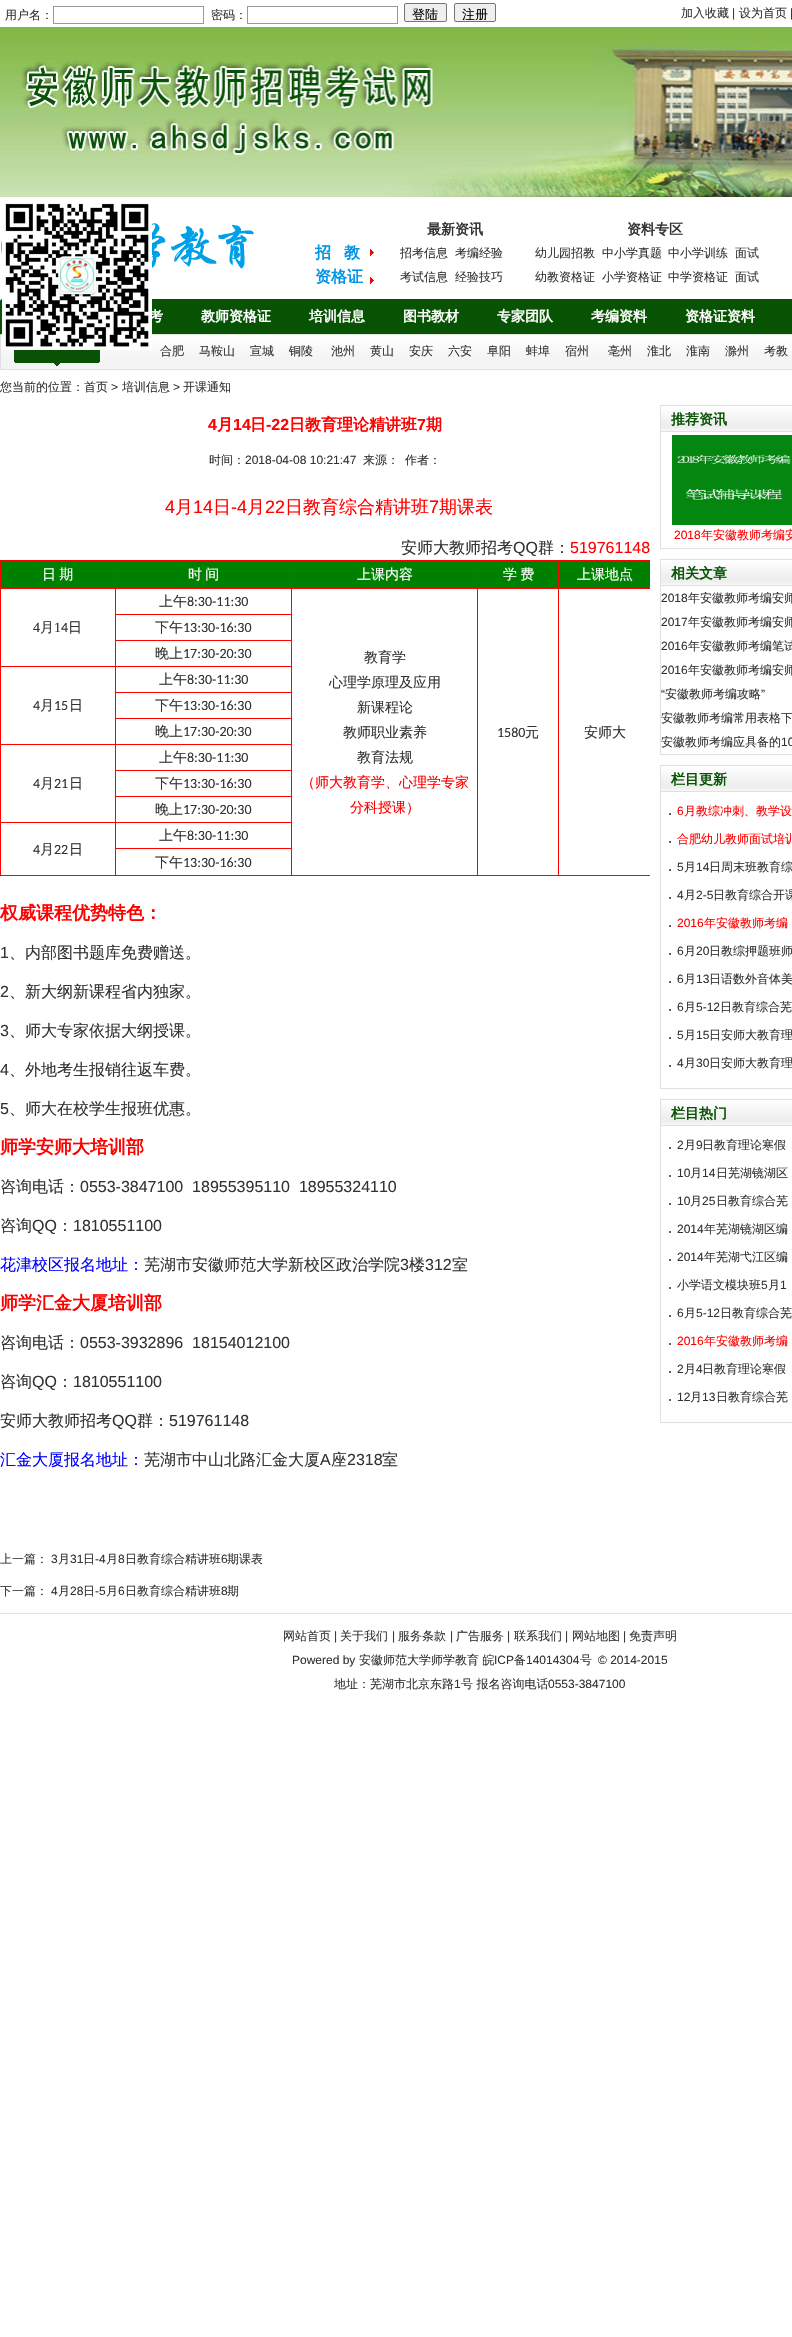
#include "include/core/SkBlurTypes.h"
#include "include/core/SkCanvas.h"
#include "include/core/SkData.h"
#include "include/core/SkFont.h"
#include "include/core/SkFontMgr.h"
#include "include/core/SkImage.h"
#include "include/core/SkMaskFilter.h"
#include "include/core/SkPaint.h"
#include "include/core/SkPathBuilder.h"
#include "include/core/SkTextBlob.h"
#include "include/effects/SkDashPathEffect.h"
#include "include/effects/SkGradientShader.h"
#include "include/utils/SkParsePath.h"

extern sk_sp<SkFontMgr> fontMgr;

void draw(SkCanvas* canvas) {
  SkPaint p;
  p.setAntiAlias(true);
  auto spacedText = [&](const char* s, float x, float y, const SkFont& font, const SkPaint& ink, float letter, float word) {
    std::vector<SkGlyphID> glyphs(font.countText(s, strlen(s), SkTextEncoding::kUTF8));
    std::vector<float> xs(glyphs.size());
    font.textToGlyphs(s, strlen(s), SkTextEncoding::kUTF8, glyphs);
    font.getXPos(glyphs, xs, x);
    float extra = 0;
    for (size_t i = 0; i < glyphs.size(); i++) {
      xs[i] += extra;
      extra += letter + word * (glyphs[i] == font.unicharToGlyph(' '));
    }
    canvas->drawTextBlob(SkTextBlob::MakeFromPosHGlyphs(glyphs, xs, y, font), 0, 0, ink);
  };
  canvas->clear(SK_ColorWHITE);
  p.setStyle(SkPaint::kStroke_Style);
  p.setStrokeWidth(1);
  p.setColor(SkColorSetRGB(153, 153, 153));
  canvas->drawRect(SkRect::MakeLTRB(53.5f, 6.5f, 203.5f, 23.5f), p);
  canvas->drawRect(SkRect::MakeLTRB(247.5f, 6.5f, 397.5f, 23.5f), p);
  p.setStyle(SkPaint::kFill_Style);
  p.setColor(SkColorSetRGB(239, 239, 239));
  canvas->drawRoundRect(SkRect::MakeLTRB(404.5f, 3.5f, 446.5f, 21.5f), 1.5f, 1.5f, p);
  p.setStyle(SkPaint::kStroke_Style);
  p.setColor(SkColorSetRGB(118, 118, 118));
  canvas->drawRoundRect(SkRect::MakeLTRB(404.5f, 3.5f, 446.5f, 21.5f), 1.5f, 1.5f, p);
  p.setStyle(SkPaint::kFill_Style);
  p.setColor(SkColorSetRGB(239, 239, 239));
  canvas->drawRoundRect(SkRect::MakeLTRB(454.5f, 3.5f, 495.5f, 21.5f), 1.5f, 1.5f, p);
  p.setStyle(SkPaint::kStroke_Style);
  p.setColor(SkColorSetRGB(118, 118, 118));
  canvas->drawRoundRect(SkRect::MakeLTRB(454.5f, 3.5f, 495.5f, 21.5f), 1.5f, 1.5f, p);
  canvas->drawImageRect(SkImages::DeferredFromEncodedData(SkData::MakeFromFileName("images/1.png")), SkRect::MakeLTRB(0, 27, 792, 197), SkSamplingOptions());
  canvas->drawImageRect(SkImages::DeferredFromEncodedData(SkData::MakeFromFileName("images/2.png")), SkRect::MakeLTRB(1, 223, 254, 269), SkSamplingOptions());
  canvas->drawImageRect(SkImages::DeferredFromEncodedData(SkData::MakeFromFileName("images/3.png")), SkRect::MakeLTRB(370, 249, 374, 284), SkSamplingOptions());
  canvas->drawImageRect(SkImages::DeferredFromEncodedData(SkData::MakeFromFileName("images/4.png")), SkRect::MakeLTRB(2, 299, 792, 369), SkSamplingOptions());
  p.setStyle(SkPaint::kFill_Style);
  p.setColor(SkColorSetRGB(224, 224, 224));
  canvas->drawRect(SkRect::MakeLTRB(0, 369, 792, 370), p);
  canvas->drawImageRect(SkImages::DeferredFromEncodedData(SkData::MakeFromFileName("images/5.png")), SkRect::MakeLTRB(0, 299, 2, 369), SkSamplingOptions());
  canvas->drawImageRect(SkImages::DeferredFromEncodedData(SkData::MakeFromFileName("images/6.png")), SkRect::MakeLTRB(14, 350, 100, 366), SkSamplingOptions());
  p.setColor(SkColorSetRGB(0, 128, 0));
  canvas->drawRect(SkRect::MakeLTRB(1, 561, 115, 588), p);
  p.setColor(SkColorSetRGB(255, 0, 0));
  canvas->drawRect(SkRect::MakeLTRB(0, 560, 650, 561), p);
  canvas->drawRect(SkRect::MakeLTRB(558, 875, 650, 876), p);
  canvas->drawRect(SkRect::MakeLTRB(558, 588, 559, 876), p);
  canvas->drawRect(SkRect::MakeLTRB(558, 588, 650, 589), p);
  canvas->drawRect(SkRect::MakeLTRB(558, 560, 559, 589), p);
  canvas->drawRect(SkRect::MakeLTRB(477, 875, 559, 876), p);
  canvas->drawRect(SkRect::MakeLTRB(477, 588, 478, 876), p);
  canvas->drawRect(SkRect::MakeLTRB(477, 588, 559, 589), p);
  canvas->drawRect(SkRect::MakeLTRB(477, 560, 478, 589), p);
  canvas->drawRect(SkRect::MakeLTRB(291, 588, 292, 876), p);
  canvas->drawRect(SkRect::MakeLTRB(291, 588, 478, 589), p);
  canvas->drawRect(SkRect::MakeLTRB(291, 560, 292, 589), p);
  canvas->drawRect(SkRect::MakeLTRB(115, 614, 292, 615), p);
  canvas->drawRect(SkRect::MakeLTRB(115, 640, 292, 641), p);
  canvas->drawRect(SkRect::MakeLTRB(115, 692, 292, 693), p);
  canvas->drawRect(SkRect::MakeLTRB(115, 718, 292, 719), p);
  canvas->drawRect(SkRect::MakeLTRB(115, 770, 292, 771), p);
  canvas->drawRect(SkRect::MakeLTRB(115, 796, 292, 797), p);
  canvas->drawRect(SkRect::MakeLTRB(115, 848, 292, 849), p);
  canvas->drawRect(SkRect::MakeLTRB(115, 875, 292, 876), p);
  canvas->drawRect(SkRect::MakeLTRB(115, 822, 116, 876), p);
  canvas->drawRect(SkRect::MakeLTRB(115, 822, 292, 823), p);
  canvas->drawRect(SkRect::MakeLTRB(115, 744, 116, 823), p);
  canvas->drawRect(SkRect::MakeLTRB(115, 744, 292, 745), p);
  canvas->drawRect(SkRect::MakeLTRB(115, 666, 116, 745), p);
  canvas->drawRect(SkRect::MakeLTRB(115, 666, 292, 667), p);
  canvas->drawRect(SkRect::MakeLTRB(115, 588, 116, 667), p);
  canvas->drawRect(SkRect::MakeLTRB(115, 588, 292, 589), p);
  canvas->drawRect(SkRect::MakeLTRB(115, 560, 116, 589), p);
  canvas->drawRect(SkRect::MakeLTRB(0, 875, 116, 876), p);
  canvas->drawRect(SkRect::MakeLTRB(0, 822, 1, 876), p);
  canvas->drawRect(SkRect::MakeLTRB(0, 822, 116, 823), p);
  canvas->drawRect(SkRect::MakeLTRB(0, 744, 1, 823), p);
  canvas->drawRect(SkRect::MakeLTRB(0, 744, 116, 745), p);
  canvas->drawRect(SkRect::MakeLTRB(0, 666, 1, 745), p);
  canvas->drawRect(SkRect::MakeLTRB(0, 666, 116, 667), p);
  canvas->drawRect(SkRect::MakeLTRB(0, 588, 1, 667), p);
  canvas->drawRect(SkRect::MakeLTRB(0, 588, 116, 589), p);
  canvas->drawRect(SkRect::MakeLTRB(0, 560, 1, 589), p);
  p.setColor(SkColorSetRGB(0, 128, 0));
  canvas->drawRect(SkRect::MakeLTRB(116, 561, 291, 588), p);
  canvas->drawRect(SkRect::MakeLTRB(292, 561, 477, 588), p);
  canvas->drawRect(SkRect::MakeLTRB(478, 561, 558, 588), p);
  canvas->drawRect(SkRect::MakeLTRB(559, 561, 650, 588), p);
  p.setColor(SkColorSetRGB(255, 0, 0));
  canvas->drawRect(SkRect::MakeLTRB(291, 875, 478, 876), p);
  canvas->drawImageRect(SkImages::DeferredFromEncodedData(SkData::MakeFromFileName("images/8.png")), SkRect::MakeLTRB(661, 406, 792, 432), SkSamplingOptions());
  p.setColor(SkColorSetRGB(224, 224, 224));
  canvas->drawRect(SkRect::MakeLTRB(660, 405, 792, 406), p);
  canvas->drawRect(SkRect::MakeLTRB(660, 405, 661, 432), p);
  canvas->drawRect(SkRect::MakeLTRB(660, 548, 792, 549), p);
  canvas->drawRect(SkRect::MakeLTRB(660, 432, 661, 549), p);
  canvas->drawImageRect(SkImages::DeferredFromEncodedData(SkData::MakeFromFileName("images/9.png")), SkRect::MakeLTRB(672, 435, 792, 525), SkSamplingOptions());
  canvas->drawImageRect(SkImages::DeferredFromEncodedData(SkData::MakeFromFileName("images/8.png")), SkRect::MakeLTRB(661, 560, 792, 586), SkSamplingOptions());
  canvas->drawRect(SkRect::MakeLTRB(660, 559, 792, 560), p);
  canvas->drawRect(SkRect::MakeLTRB(660, 559, 661, 586), p);
  canvas->drawRect(SkRect::MakeLTRB(660, 754, 792, 755), p);
  canvas->drawRect(SkRect::MakeLTRB(660, 586, 661, 755), p);
  canvas->drawImageRect(SkImages::DeferredFromEncodedData(SkData::MakeFromFileName("images/8.png")), SkRect::MakeLTRB(661, 766, 792, 792), SkSamplingOptions());
  canvas->drawRect(SkRect::MakeLTRB(660, 765, 792, 766), p);
  canvas->drawRect(SkRect::MakeLTRB(660, 765, 661, 792), p);
  canvas->drawRect(SkRect::MakeLTRB(660, 1088, 792, 1089), p);
  canvas->drawRect(SkRect::MakeLTRB(660, 792, 661, 1089), p);
  p.setColor(SkColorSetRGB(102, 102, 102));
  canvas->drawRect(SkRect::MakeLTRB(669, 813, 671, 815), p);
  canvas->drawRect(SkRect::MakeLTRB(669, 841, 671, 843), p);
  canvas->drawRect(SkRect::MakeLTRB(669, 869, 671, 871), p);
  canvas->drawRect(SkRect::MakeLTRB(669, 897, 671, 899), p);
  canvas->drawRect(SkRect::MakeLTRB(669, 925, 671, 927), p);
  canvas->drawRect(SkRect::MakeLTRB(669, 953, 671, 955), p);
  canvas->drawRect(SkRect::MakeLTRB(669, 981, 671, 983), p);
  canvas->drawRect(SkRect::MakeLTRB(669, 1009, 671, 1011), p);
  canvas->drawRect(SkRect::MakeLTRB(669, 1037, 671, 1039), p);
  canvas->drawRect(SkRect::MakeLTRB(669, 1065, 671, 1067), p);
  canvas->drawImageRect(SkImages::DeferredFromEncodedData(SkData::MakeFromFileName("images/8.png")), SkRect::MakeLTRB(661, 1100, 792, 1126), SkSamplingOptions());
  p.setColor(SkColorSetRGB(224, 224, 224));
  canvas->drawRect(SkRect::MakeLTRB(660, 1099, 792, 1100), p);
  canvas->drawRect(SkRect::MakeLTRB(660, 1099, 661, 1126), p);
  canvas->drawRect(SkRect::MakeLTRB(660, 1422, 792, 1423), p);
  canvas->drawRect(SkRect::MakeLTRB(660, 1126, 661, 1423), p);
  p.setColor(SkColorSetRGB(102, 102, 102));
  canvas->drawRect(SkRect::MakeLTRB(669, 1147, 671, 1149), p);
  canvas->drawRect(SkRect::MakeLTRB(669, 1175, 671, 1177), p);
  canvas->drawRect(SkRect::MakeLTRB(669, 1203, 671, 1205), p);
  canvas->drawRect(SkRect::MakeLTRB(669, 1231, 671, 1233), p);
  canvas->drawRect(SkRect::MakeLTRB(669, 1259, 671, 1261), p);
  canvas->drawRect(SkRect::MakeLTRB(669, 1287, 671, 1289), p);
  canvas->drawRect(SkRect::MakeLTRB(669, 1315, 671, 1317), p);
  canvas->drawRect(SkRect::MakeLTRB(669, 1343, 671, 1345), p);
  canvas->drawRect(SkRect::MakeLTRB(669, 1371, 671, 1373), p);
  canvas->drawRect(SkRect::MakeLTRB(669, 1399, 671, 1401), p);
  p.setColor(SkColorSetRGB(224, 224, 224));
  canvas->drawRect(SkRect::MakeLTRB(0, 1613, 792, 1614), p);
  SkFont font1(fontMgr->matchFamilyStyle("WenQuanYi Zen Hei", SkFontStyle(500, SkFontStyle::kNormal_Width, SkFontStyle::kUpright_Slant)), 12);
  font1.setSubpixel(true);
  p.setColor(SkColorSetRGB(51, 51, 51));
  canvas->drawString("用户名：", 5, 19, font1, p);
  canvas->drawString("密码：", 211, 19, font1, p);
  canvas->save();
  canvas->clipRect(SkRect::MakeLTRB(406, 5, 445, 20));
  SkFont font2(fontMgr->matchFamilyStyle("WenQuanYi Zen Hei", SkFontStyle(500, SkFontStyle::kNormal_Width, SkFontStyle::kUpright_Slant)), 13);
  font2.setSubpixel(true);
  p.setColor(SK_ColorBLACK);
  canvas->drawString("登陆", 412, 19, font2, p);
  canvas->restore();
  canvas->save();
  canvas->clipRect(SkRect::MakeLTRB(456, 5, 494, 20));
  canvas->drawString("注册", 462, 19, font2, p);
  canvas->restore();
  p.setColor(SkColorSetRGB(51, 51, 51));
  canvas->drawString("加入收藏", 681, 17, font1, p);
  SkFont font3(fontMgr->matchFamilyStyle("Liberation Sans", SkFontStyle::Normal()), 12);
  font3.setSubpixel(true);
  canvas->drawString("|", 732, 17, font3, p);
  canvas->drawString("设为首页", 739, 17, font1, p);
  canvas->drawString("|", 790, 17, font3, p);
  SkFont font4(fontMgr->matchFamilyStyle("WenQuanYi Zen Hei", SkFontStyle::Bold()), 16);
  font4.setSubpixel(true);
  p.setColor(SkColorSetRGB(2, 147, 230));
  canvas->drawString("招", 315, 258, font4, p);
  canvas->drawString("教", 344, 258, font4, p);
  canvas->drawString("资格证", 315, 282, font4, p);
  SkFont font5(fontMgr->matchFamilyStyle("WenQuanYi Zen Hei", SkFontStyle::Bold()), 14);
  font5.setSubpixel(true);
  p.setColor(SkColorSetRGB(51, 51, 51));
  canvas->drawString("最新资讯", 427, 234, font5, p);
  canvas->drawString("招考信息", 400, 257, font1, p);
  canvas->drawString("考编经验", 455, 257, font1, p);
  canvas->drawString("考试信息", 400, 281, font1, p);
  canvas->drawString("经验技巧", 455, 281, font1, p);
  canvas->drawString("资料专区", 627, 234, font5, p);
  canvas->drawString("幼儿园招教", 535, 257, font1, p);
  canvas->drawString("中小学真题", 602, 257, font1, p);
  canvas->drawString("中小学训练", 668, 257, font1, p);
  canvas->drawString("面试", 735, 257, font1, p);
  canvas->drawString("幼教资格证", 535, 281, font1, p);
  canvas->drawString("小学资格证", 602, 281, font1, p);
  canvas->drawString("中学资格证", 668, 281, font1, p);
  canvas->drawString("面试", 735, 281, font1, p);
  p.setColor(SK_ColorWHITE);
  canvas->drawString("考", 149, 321, font5, p);
  canvas->drawString("教师资格证", 201, 321, font5, p);
  canvas->drawString("培训信息", 309, 321, font5, p);
  canvas->drawString("图书教材", 403, 321, font5, p);
  canvas->drawString("专家团队", 497, 321, font5, p);
  canvas->drawString("考编资料", 591, 321, font5, p);
  canvas->drawString("资格证资料", 685, 321, font5, p);
  p.setColor(SkColorSetRGB(51, 51, 51));
  canvas->drawString("合肥", 160, 355, font1, p);
  canvas->drawString("马鞍山", 199, 355, font1, p);
  canvas->drawString("宣城", 250, 355, font1, p);
  canvas->drawString("铜陵", 289, 355, font1, p);
  canvas->drawString("池州", 331, 355, font1, p);
  canvas->drawString("黄山", 370, 355, font1, p);
  canvas->drawString("安庆", 409, 355, font1, p);
  canvas->drawString("六安", 448, 355, font1, p);
  canvas->drawString("阜阳", 487, 355, font1, p);
  canvas->drawString("蚌埠", 526, 355, font1, p);
  canvas->drawString("宿州", 565, 355, font1, p);
  canvas->drawString("亳州", 608, 355, font1, p);
  canvas->drawString("淮北", 647, 355, font1, p);
  canvas->drawString("淮南", 686, 355, font1, p);
  canvas->drawString("滁州", 725, 355, font1, p);
  canvas->drawString("考教", 764, 355, font1, p);
  canvas->drawImageRect(SkImages::DeferredFromEncodedData(SkData::MakeFromFileName("images/7.png")), SkRect::MakeLTRB(2, 203, 152, 350), SkSamplingOptions());
  canvas->drawString("您当前的位置：首页", 0, 391, font1, p);
  canvas->drawString(">", 111, 391, font3, p);
  canvas->drawString("培训信息", 122, 391, font1, p);
  canvas->drawString(">", 173, 391, font3, p);
  canvas->drawString("开课通知", 183, 391, font1, p);
  SkFont font6(fontMgr->matchFamilyStyle("Liberation Sans", SkFontStyle::Bold()), 16);
  font6.setSubpixel(true);
  p.setColor(SkColorSetRGB(255, 0, 0));
  canvas->drawString("4", 208, 430, font6, p);
  canvas->drawString("月", 217, 430, font4, p);
  canvas->drawString("14", 233, 430, font6, p);
  canvas->drawString("日", 250, 430, font4, p);
  canvas->drawString("-22", 266, 430, font6, p);
  canvas->drawString("日教育理论精讲班", 289, 430, font4, p);
  canvas->drawString("7", 417, 430, font6, p);
  canvas->drawString("期", 426, 430, font4, p);
  p.setColor(SkColorSetRGB(51, 51, 51));
  canvas->drawString("时间：", 209, 464, font1, p);
  canvas->drawString("2018-04-08 10:21:47", 245, 464, font3, p);
  canvas->drawString("来源：", 363, 464, font1, p);
  canvas->drawString("作者：", 405, 464, font1, p);
  SkFont font7(fontMgr->matchFamilyStyle("Liberation Sans", SkFontStyle::Normal()), 18);
  font7.setSubpixel(true);
  p.setColor(SkColorSetRGB(255, 0, 0));
  canvas->drawString("4", 165, 513, font7, p);
  SkFont font8(fontMgr->matchFamilyStyle("WenQuanYi Zen Hei", SkFontStyle(500, SkFontStyle::kNormal_Width, SkFontStyle::kUpright_Slant)), 18);
  font8.setSubpixel(true);
  canvas->drawString("月", 175, 513, font8, p);
  canvas->drawString("14", 193, 513, font7, p);
  canvas->drawString("日", 213, 513, font8, p);
  canvas->drawString("-4", 231, 513, font7, p);
  canvas->drawString("月", 247, 513, font8, p);
  canvas->drawString("22", 265, 513, font7, p);
  canvas->drawString("日教育综合精讲班", 285, 513, font8, p);
  canvas->drawString("7", 429, 513, font7, p);
  canvas->drawString("期课表", 439, 513, font8, p);
  SkFont font9(fontMgr->matchFamilyStyle("WenQuanYi Zen Hei", SkFontStyle(500, SkFontStyle::kNormal_Width, SkFontStyle::kUpright_Slant)), 16);
  font9.setSubpixel(true);
  p.setColor(SkColorSetRGB(51, 51, 51));
  canvas->drawString("安师大教师招考", 401, 553, font9, p);
  SkFont font10(fontMgr->matchFamilyStyle("Liberation Sans", SkFontStyle::Normal()), 16);
  font10.setSubpixel(true);
  canvas->drawString("QQ", 513, 553, font10, p);
  canvas->drawString("群：", 538, 553, font9, p);
  p.setColor(SkColorSetRGB(255, 0, 0));
  canvas->drawString("519761148", 570, 553, font10, p);
  SkFont font11(fontMgr->matchFamilyStyle("WenQuanYi Zen Hei", SkFontStyle(500, SkFontStyle::kNormal_Width, SkFontStyle::kUpright_Slant)), 14);
  font11.setSubpixel(true);
  p.setColor(SK_ColorWHITE);
  spacedText("日 期", 42, 579, font11, p, 0, -1);
  spacedText("时 间", 188, 579, font11, p, 0, -1);
  canvas->drawString("上课内容", 357, 579, font11, p);
  spacedText("学 费", 503, 579, font11, p, 0, -1);
  canvas->drawString("上课地点", 577, 579, font11, p);
  p.setColor(SkColorSetRGB(51, 51, 51));
  canvas->drawString("上午", 159, 606, font11, p);
  SkFont font12(fontMgr->matchFamilyStyle("Carlito", SkFontStyle::Normal()), 14);
  font12.setSubpixel(true);
  canvas->drawString("8:30-11:30", 187, 606, font12, p);
  SkFont font13(fontMgr->matchFamilyStyle("Liberation Serif", SkFontStyle::Normal()), 14);
  font13.setSubpixel(true);
  canvas->drawString("4", 33, 632, font13, p);
  canvas->drawString("月", 40, 632, font11, p);
  canvas->drawString("1", 54, 632, font13, p);
  canvas->drawString("4", 61, 632, font12, p);
  canvas->drawString("日", 68, 632, font11, p);
  canvas->drawString("教育学", 364, 662, font11, p);
  canvas->drawString("心理学原理及应用", 329, 687, font11, p);
  canvas->drawString("新课程论", 357, 712, font11, p);
  canvas->drawString("教师职业素养", 343, 737, font11, p);
  canvas->drawString("教育法规", 357, 762, font11, p);
  p.setColor(SkColorSetRGB(255, 0, 0));
  canvas->drawString("（师大教育学、心理学专家", 301, 787, font11, p);
  canvas->drawString("分科授课）", 350, 812, font11, p);
  p.setColor(SkColorSetRGB(51, 51, 51));
  canvas->drawString("1580", 497, 737, font12, p);
  canvas->drawString("元", 525, 737, font11, p);
  canvas->drawString("安师大", 584, 737, font11, p);
  canvas->drawString("下午", 155, 632, font11, p);
  canvas->drawString("13:30-16:30", 183, 632, font12, p);
  canvas->drawString("晚上", 155, 658, font11, p);
  canvas->drawString("17:30-20:30", 183, 658, font12, p);
  canvas->drawString("上午", 159, 684, font11, p);
  canvas->drawString("8:30-11:30", 187, 684, font12, p);
  canvas->drawString("4", 33, 710, font12, p);
  canvas->drawString("月", 40, 710, font11, p);
  canvas->drawString("15", 54, 710, font12, p);
  canvas->drawString("日", 69, 710, font11, p);
  canvas->drawString("下午", 155, 710, font11, p);
  canvas->drawString("13:30-16:30", 183, 710, font12, p);
  canvas->drawString("晚上", 155, 736, font11, p);
  canvas->drawString("17:30-20:30", 183, 736, font12, p);
  canvas->drawString("上午", 159, 762, font11, p);
  canvas->drawString("8:30-11:30", 187, 762, font12, p);
  canvas->drawString("4", 33, 788, font12, p);
  canvas->drawString("月", 40, 788, font11, p);
  canvas->drawString("21", 54, 788, font12, p);
  canvas->drawString("日", 69, 788, font11, p);
  canvas->drawString("下午", 155, 788, font11, p);
  canvas->drawString("13:30-16:30", 183, 788, font12, p);
  canvas->drawString("晚上", 155, 814, font11, p);
  canvas->drawString("17:30-20:30", 183, 814, font12, p);
  canvas->drawString("上午", 159, 840, font11, p);
  canvas->drawString("8:30-11:30", 187, 840, font12, p);
  canvas->drawString("4", 33, 854, font12, p);
  canvas->drawString("月", 40, 854, font11, p);
  canvas->drawString("22", 54, 854, font12, p);
  canvas->drawString("日", 69, 854, font11, p);
  canvas->drawString("下午", 155, 867, font11, p);
  canvas->drawString("13:30-16:30", 183, 867, font12, p);
  SkFont font14(fontMgr->matchFamilyStyle("WenQuanYi Zen Hei", SkFontStyle::Bold()), 18);
  font14.setSubpixel(true);
  p.setColor(SkColorSetRGB(255, 0, 0));
  canvas->drawString("权威课程优势特色：", 0, 919, font14, p);
  p.setColor(SkColorSetRGB(51, 51, 51));
  canvas->drawString("1", 0, 958, font10, p);
  canvas->drawString("、内部图书题库免费赠送。", 9, 958, font9, p);
  canvas->drawString("2", 0, 997, font10, p);
  canvas->drawString("、新大纲新课程省内独家。", 9, 997, font9, p);
  canvas->drawString("3", 0, 1036, font10, p);
  canvas->drawString("、师大专家依据大纲授课。", 9, 1036, font9, p);
  canvas->drawString("4", 0, 1075, font10, p);
  canvas->drawString("、外地考生报销往返车费。", 9, 1075, font9, p);
  canvas->drawString("5", 0, 1114, font10, p);
  canvas->drawString("、师大在校学生报班优惠。", 9, 1114, font9, p);
  p.setColor(SkColorSetRGB(255, 0, 0));
  canvas->drawString("师学安师大培训部", 0, 1153, font14, p);
  p.setColor(SkColorSetRGB(51, 51, 51));
  canvas->drawString("咨询电话：", 0, 1192, font9, p);
  canvas->drawString("0553-3847100  18955395110  18955324110", 80, 1192, font10, p);
  canvas->drawString("咨询", 0, 1231, font9, p);
  canvas->drawString("QQ", 32, 1231, font10, p);
  canvas->drawString("：", 57, 1231, font9, p);
  canvas->drawString("1810551100", 73, 1231, font10, p);
  p.setColor(SkColorSetRGB(0, 0, 255));
  canvas->drawString("花津校区报名地址：", 0, 1270, font9, p);
  p.setColor(SkColorSetRGB(51, 51, 51));
  canvas->drawString("芜湖市安徽师范大学新校区政治学院", 144, 1270, font9, p);
  canvas->drawString("3", 400, 1270, font10, p);
  canvas->drawString("楼", 409, 1270, font9, p);
  canvas->drawString("312", 425, 1270, font10, p);
  canvas->drawString("室", 452, 1270, font9, p);
  p.setColor(SkColorSetRGB(255, 0, 0));
  canvas->drawString("师学汇金大厦培训部", 0, 1309, font14, p);
  p.setColor(SkColorSetRGB(51, 51, 51));
  canvas->drawString("咨询电话：", 0, 1348, font9, p);
  canvas->drawString("0553-3932896  18154012100", 80, 1348, font10, p);
  canvas->drawString("咨询", 0, 1387, font9, p);
  canvas->drawString("QQ", 32, 1387, font10, p);
  canvas->drawString("：", 57, 1387, font9, p);
  canvas->drawString("1810551100", 73, 1387, font10, p);
  canvas->drawString("安师大教师招考", 0, 1426, font9, p);
  canvas->drawString("QQ", 112, 1426, font10, p);
  canvas->drawString("群：", 137, 1426, font9, p);
  canvas->drawString("519761148", 169, 1426, font10, p);
  p.setColor(SkColorSetRGB(0, 0, 255));
  canvas->drawString("汇金大厦报名地址：", 0, 1465, font9, p);
  p.setColor(SkColorSetRGB(51, 51, 51));
  canvas->drawString("芜湖市中山北路汇金大厦", 144, 1465, font9, p);
  canvas->drawString("A", 320, 1465, font10, p);
  canvas->drawString("座", 331, 1465, font9, p);
  canvas->drawString("2318", 347, 1465, font10, p);
  canvas->drawString("室", 382, 1465, font9, p);
  canvas->drawString("上一篇：", 0, 1563, font1, p);
  canvas->drawString("3", 51, 1563, font3, p);
  canvas->drawString("月", 58, 1563, font1, p);
  canvas->drawString("31", 70, 1563, font3, p);
  canvas->drawString("日", 83, 1563, font1, p);
  canvas->drawString("-4", 95, 1563, font3, p);
  canvas->drawString("月", 106, 1563, font1, p);
  canvas->drawString("8", 118, 1563, font3, p);
  canvas->drawString("日教育综合精讲班", 125, 1563, font1, p);
  canvas->drawString("6", 221, 1563, font3, p);
  canvas->drawString("期课表", 227, 1563, font1, p);
  canvas->drawString("下一篇：", 0, 1595, font1, p);
  canvas->drawString("4", 51, 1595, font3, p);
  canvas->drawString("月", 58, 1595, font1, p);
  canvas->drawString("28", 70, 1595, font3, p);
  canvas->drawString("日", 83, 1595, font1, p);
  canvas->drawString("-5", 95, 1595, font3, p);
  canvas->drawString("月", 106, 1595, font1, p);
  canvas->drawString("6", 118, 1595, font3, p);
  canvas->drawString("日教育综合精讲班", 125, 1595, font1, p);
  canvas->drawString("8", 221, 1595, font3, p);
  canvas->drawString("期", 227, 1595, font1, p);
  p.setColor(SkColorSetRGB(7, 83, 3));
  canvas->drawString("推荐资讯", 671, 424, font5, p);
  p.setColor(SkColorSetRGB(255, 0, 0));
  canvas->drawString("2018", 674, 539, font3, p);
  canvas->drawString("年安徽教师考编安", 701, 539, font1, p);
  p.setColor(SkColorSetRGB(7, 83, 3));
  canvas->drawString("相关文章", 671, 578, font5, p);
  p.setColor(SkColorSetRGB(51, 51, 51));
  canvas->drawString("2018", 661, 602, font3, p);
  canvas->drawString("年安徽教师考编安师", 688, 602, font1, p);
  canvas->drawString("2017", 661, 626, font3, p);
  canvas->drawString("年安徽教师考编安师", 688, 626, font1, p);
  canvas->drawString("2016", 661, 650, font3, p);
  canvas->drawString("年安徽教师考编笔试", 688, 650, font1, p);
  canvas->drawString("2016", 661, 674, font3, p);
  canvas->drawString("年安徽教师考编安师", 688, 674, font1, p);
  canvas->drawString("“", 661, 698, font3, p);
  canvas->drawString("安徽教师考编攻略", 665, 698, font1, p);
  canvas->drawString("”", 761, 698, font3, p);
  canvas->drawString("安徽教师考编常用表格下", 661, 722, font1, p);
  canvas->drawString("安徽教师考编应具备的", 661, 746, font1, p);
  canvas->drawString("10", 781, 746, font3, p);
  p.setColor(SkColorSetRGB(7, 83, 3));
  canvas->drawString("栏目更新", 671, 784, font5, p);
  p.setColor(SkColorSetRGB(255, 0, 0));
  canvas->drawString("6", 677, 815, font3, p);
  canvas->drawString("月教综冲刺、教学设", 684, 815, font1, p);
  canvas->drawString("合肥幼儿教师面试培训", 677, 843, font1, p);
  p.setColor(SkColorSetRGB(51, 51, 51));
  canvas->drawString("5", 677, 871, font3, p);
  canvas->drawString("月", 684, 871, font1, p);
  canvas->drawString("14", 696, 871, font3, p);
  canvas->drawString("日周末班教育综", 709, 871, font1, p);
  canvas->drawString("4", 677, 899, font3, p);
  canvas->drawString("月", 684, 899, font1, p);
  canvas->drawString("2-5", 696, 899, font3, p);
  canvas->drawString("日教育综合开课", 713, 899, font1, p);
  p.setColor(SkColorSetRGB(255, 0, 0));
  canvas->drawString("2016", 677, 927, font3, p);
  canvas->drawString("年安徽教师考编", 704, 927, font1, p);
  p.setColor(SkColorSetRGB(51, 51, 51));
  canvas->drawString("6", 677, 955, font3, p);
  canvas->drawString("月", 684, 955, font1, p);
  canvas->drawString("20", 696, 955, font3, p);
  canvas->drawString("日教综押题班师", 709, 955, font1, p);
  canvas->drawString("6", 677, 983, font3, p);
  canvas->drawString("月", 684, 983, font1, p);
  canvas->drawString("13", 696, 983, font3, p);
  canvas->drawString("日语数外音体美", 709, 983, font1, p);
  canvas->drawString("6", 677, 1011, font3, p);
  canvas->drawString("月", 684, 1011, font1, p);
  canvas->drawString("5-12", 696, 1011, font3, p);
  canvas->drawString("日教育综合芜", 720, 1011, font1, p);
  canvas->drawString("5", 677, 1039, font3, p);
  canvas->drawString("月", 684, 1039, font1, p);
  canvas->drawString("15", 696, 1039, font3, p);
  canvas->drawString("日安师大教育理", 709, 1039, font1, p);
  canvas->drawString("4", 677, 1067, font3, p);
  canvas->drawString("月", 684, 1067, font1, p);
  canvas->drawString("30", 696, 1067, font3, p);
  canvas->drawString("日安师大教育理", 709, 1067, font1, p);
  p.setColor(SkColorSetRGB(7, 83, 3));
  canvas->drawString("栏目热门", 671, 1118, font5, p);
  p.setColor(SkColorSetRGB(51, 51, 51));
  canvas->drawString("2", 677, 1149, font3, p);
  canvas->drawString("月", 684, 1149, font1, p);
  canvas->drawString("9", 696, 1149, font3, p);
  canvas->drawString("日教育理论寒假", 702, 1149, font1, p);
  canvas->drawString("10", 677, 1177, font3, p);
  canvas->drawString("月", 690, 1177, font1, p);
  canvas->drawString("14", 702, 1177, font3, p);
  canvas->drawString("日芜湖镜湖区", 716, 1177, font1, p);
  canvas->drawString("10", 677, 1205, font3, p);
  canvas->drawString("月", 690, 1205, font1, p);
  canvas->drawString("25", 702, 1205, font3, p);
  canvas->drawString("日教育综合芜", 716, 1205, font1, p);
  canvas->drawString("2014", 677, 1233, font3, p);
  canvas->drawString("年芜湖镜湖区编", 704, 1233, font1, p);
  canvas->drawString("2014", 677, 1261, font3, p);
  canvas->drawString("年芜湖弋江区编", 704, 1261, font1, p);
  canvas->drawString("小学语文模块班", 677, 1289, font1, p);
  canvas->drawString("5", 761, 1289, font3, p);
  canvas->drawString("月", 768, 1289, font1, p);
  canvas->drawString("1", 780, 1289, font3, p);
  canvas->drawString("6", 677, 1317, font3, p);
  canvas->drawString("月", 684, 1317, font1, p);
  canvas->drawString("5-12", 696, 1317, font3, p);
  canvas->drawString("日教育综合芜", 720, 1317, font1, p);
  p.setColor(SkColorSetRGB(255, 0, 0));
  canvas->drawString("2016", 677, 1345, font3, p);
  canvas->drawString("年安徽教师考编", 704, 1345, font1, p);
  p.setColor(SkColorSetRGB(51, 51, 51));
  canvas->drawString("2", 677, 1373, font3, p);
  canvas->drawString("月", 684, 1373, font1, p);
  canvas->drawString("4", 696, 1373, font3, p);
  canvas->drawString("日教育理论寒假", 702, 1373, font1, p);
  canvas->drawString("12", 677, 1401, font3, p);
  canvas->drawString("月", 690, 1401, font1, p);
  canvas->drawString("13", 702, 1401, font3, p);
  canvas->drawString("日教育综合芜", 716, 1401, font1, p);
  canvas->drawString("网站首页", 283, 1640, font1, p);
  canvas->drawString("|", 334, 1640, font3, p);
  canvas->drawString("关于我们", 340, 1640, font1, p);
  canvas->drawString("|", 392, 1640, font3, p);
  canvas->drawString("服务条款", 398, 1640, font1, p);
  canvas->drawString("|", 450, 1640, font3, p);
  canvas->drawString("广告服务", 456, 1640, font1, p);
  canvas->drawString("|", 507, 1640, font3, p);
  canvas->drawString("联系我们", 514, 1640, font1, p);
  canvas->drawString("|", 565, 1640, font3, p);
  canvas->drawString("网站地图", 572, 1640, font1, p);
  canvas->drawString("|", 623, 1640, font3, p);
  canvas->drawString("免责声明", 629, 1640, font1, p);
  canvas->drawString("Powered by", 292, 1664, font3, p);
  canvas->drawString("安徽师范大学师学教育 皖", 359, 1664, font1, p);
  canvas->drawString("ICP", 494, 1664, font3, p);
  canvas->drawString("备", 514, 1664, font1, p);
  canvas->drawString("14014304", 526, 1664, font3, p);
  canvas->drawString("号", 580, 1664, font1, p);
  canvas->drawString("© 2014-2015", 598, 1664, font3, p);
  canvas->drawString("地址：芜湖市北京东路", 334, 1688, font1, p);
  canvas->drawString("1", 454, 1688, font3, p);
  canvas->drawString("号 报名咨询电话", 461, 1688, font1, p);
  canvas->drawString("0553-3847100", 548, 1688, font3, p);
}
